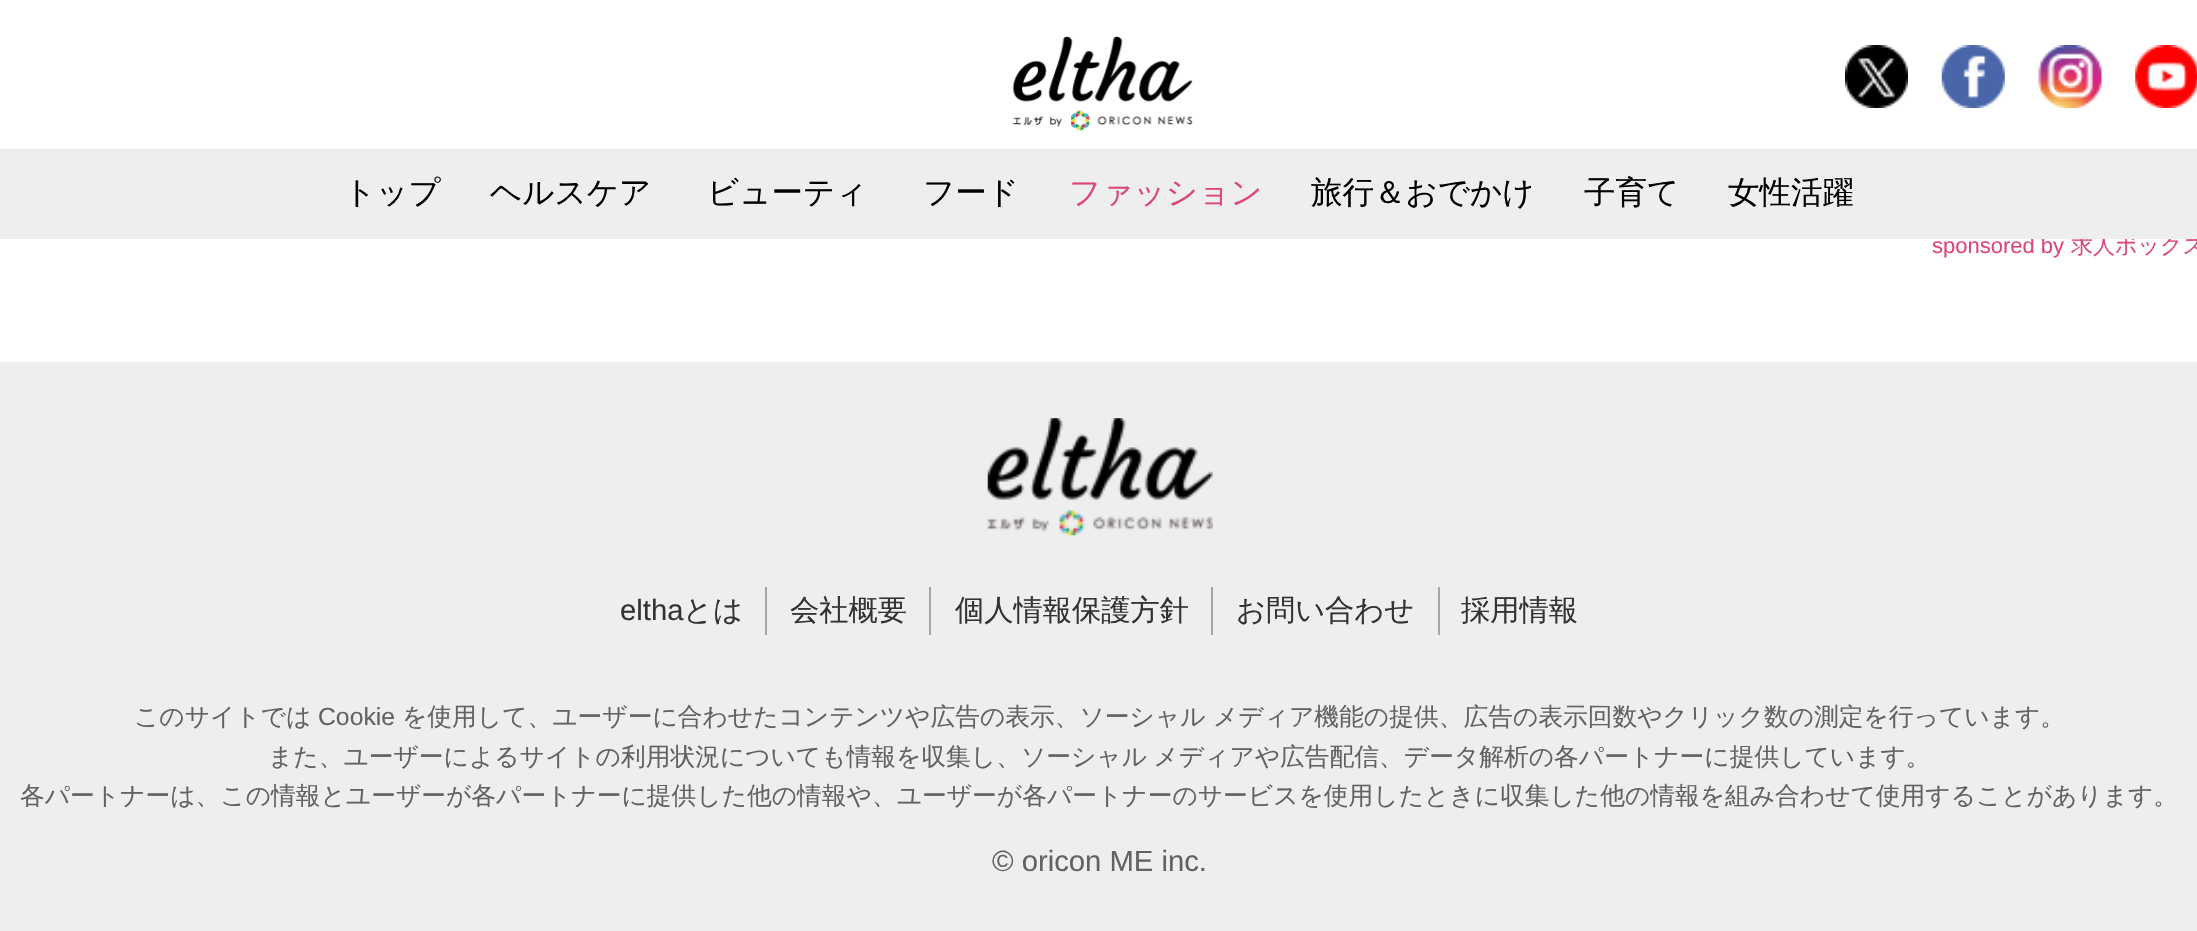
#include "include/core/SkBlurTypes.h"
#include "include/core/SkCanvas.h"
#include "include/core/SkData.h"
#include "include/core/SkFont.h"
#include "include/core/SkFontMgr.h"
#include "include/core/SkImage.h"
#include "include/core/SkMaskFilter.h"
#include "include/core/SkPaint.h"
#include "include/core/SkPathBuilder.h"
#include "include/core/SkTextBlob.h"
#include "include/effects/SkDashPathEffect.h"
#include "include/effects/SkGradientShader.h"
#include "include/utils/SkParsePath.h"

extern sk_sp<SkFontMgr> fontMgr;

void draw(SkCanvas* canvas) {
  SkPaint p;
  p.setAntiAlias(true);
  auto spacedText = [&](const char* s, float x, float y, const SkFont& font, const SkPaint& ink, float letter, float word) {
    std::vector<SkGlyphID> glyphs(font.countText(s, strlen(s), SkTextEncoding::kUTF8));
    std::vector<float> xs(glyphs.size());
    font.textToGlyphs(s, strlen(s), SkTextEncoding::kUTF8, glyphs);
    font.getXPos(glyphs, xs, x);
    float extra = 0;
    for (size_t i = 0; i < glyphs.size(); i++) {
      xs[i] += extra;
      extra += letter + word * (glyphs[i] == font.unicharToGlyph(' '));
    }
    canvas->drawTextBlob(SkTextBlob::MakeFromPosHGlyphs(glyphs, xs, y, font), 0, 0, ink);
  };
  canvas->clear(SK_ColorWHITE);
  canvas->drawImageRect(SkImages::DeferredFromEncodedData(SkData::MakeFromFileName("images/1.png")), SkRect::MakeLTRB(1012, 36, 1193, 131), SkSamplingOptions());
  canvas->drawImageRect(SkImages::DeferredFromEncodedData(SkData::MakeFromFileName("images/2.png")), SkRect::MakeLTRB(1845, 45, 1908, 108), SkSamplingOptions());
  canvas->drawImageRect(SkImages::DeferredFromEncodedData(SkData::MakeFromFileName("images/3.png")), SkRect::MakeLTRB(1941, 45, 2005, 108), SkSamplingOptions());
  canvas->drawImageRect(SkImages::DeferredFromEncodedData(SkData::MakeFromFileName("images/4.png")), SkRect::MakeLTRB(2038, 45, 2102, 108), SkSamplingOptions());
  canvas->drawImageRect(SkImages::DeferredFromEncodedData(SkData::MakeFromFileName("images/5.png")), SkRect::MakeLTRB(2135, 45, 2197, 108), SkSamplingOptions());
  p.setColor(SkColorSetRGB(238, 238, 238));
  canvas->drawRect(SkRect::MakeLTRB(0, 362, 2197, 931), p);
  canvas->drawImageRect(SkImages::DeferredFromEncodedData(SkData::MakeFromFileName("images/6.png")), SkRect::MakeLTRB(987, 418, 1213, 536), SkSamplingOptions());
  p.setColor(SkColorSetRGB(166, 166, 166));
  canvas->drawRect(SkRect::MakeLTRB(765, 587, 767, 635), p);
  canvas->drawRect(SkRect::MakeLTRB(929, 587, 931, 635), p);
  canvas->drawRect(SkRect::MakeLTRB(1211, 587, 1213, 635), p);
  canvas->drawRect(SkRect::MakeLTRB(1438, 587, 1440, 635), p);
  SkFont font1(fontMgr->matchFamilyStyle("Liberation Sans", SkFontStyle::Normal()), 22);
  font1.setSubpixel(true);
  p.setColor(SkColorSetRGB(220, 71, 118));
  canvas->drawString("sponsored by", 1932, 253, font1, p);
  SkFont font2(fontMgr->matchFamilyStyle("WenQuanYi Zen Hei", SkFontStyle(500, SkFontStyle::kNormal_Width, SkFontStyle::kUpright_Slant)), 22);
  font2.setSubpixel(true);
  canvas->drawString("求人ボックス", 2071, 253, font2, p);
  p.setColor(SkColorSetRGB(238, 238, 238));
  canvas->drawRect(SkRect::MakeLTRB(0, 149, 2197, 239), p);
  SkFont font3(fontMgr->matchFamilyStyle("WenQuanYi Zen Hei", SkFontStyle(500, SkFontStyle::kNormal_Width, SkFontStyle::kUpright_Slant)), 31.5f);
  font3.setSubpixel(true);
  p.setColor(SK_ColorBLACK);
  canvas->drawString("ビューティ", 707, 203, font3, p);
  canvas->drawString("女性活躍", 1728, 203, font3, p);
  canvas->drawString("子育て", 1584, 203, font3, p);
  canvas->drawString("旅行＆おでかけ", 1311, 203, font3, p);
  p.setColor(SkColorSetRGB(220, 71, 118));
  canvas->drawString("ファッション", 1069, 203, font3, p);
  p.setColor(SK_ColorBLACK);
  canvas->drawString("フード", 923, 203, font3, p);
  canvas->drawString("ヘルスケア", 490, 203, font3, p);
  canvas->drawString("トップ", 344, 203, font3, p);
  SkFont font4(fontMgr->matchFamilyStyle("Liberation Sans", SkFontStyle::Normal()), 29.25f);
  font4.setSubpixel(true);
  p.setColor(SkColorSetRGB(51, 51, 51));
  canvas->drawString("eltha", 620, 620, font4, p);
  SkFont font5(fontMgr->matchFamilyStyle("WenQuanYi Zen Hei", SkFontStyle(500, SkFontStyle::kNormal_Width, SkFontStyle::kUpright_Slant)), 29.25f);
  font5.setSubpixel(true);
  canvas->drawString("とは", 683, 620, font5, p);
  canvas->drawString("会社概要", 790, 620, font5, p);
  canvas->drawString("個人情報保護方針", 955, 620, font5, p);
  canvas->drawString("お問い合わせ", 1236, 620, font5, p);
  canvas->drawString("採用情報", 1461, 620, font5, p);
  SkFont font6(fontMgr->matchFamilyStyle("WenQuanYi Zen Hei", SkFontStyle(500, SkFontStyle::kNormal_Width, SkFontStyle::kUpright_Slant)), 24.75f);
  font6.setSubpixel(true);
  p.setColor(SkColorSetRGB(98, 98, 98));
  canvas->drawString("このサイトでは", 134, 725, font6, p);
  SkFont font7(fontMgr->matchFamilyStyle("Liberation Sans", SkFontStyle::Normal()), 24.75f);
  font7.setSubpixel(true);
  canvas->drawString("Cookie", 318, 725, font7, p);
  canvas->drawString("を使用して、ユーザーに合わせたコンテンツや広告の表示、ソーシャル メディア機能の提供、広告の表示回数やクリック数の測定を行っています。", 402, 725, font6, p);
  spacedText("また、ユーザーによるサイトの利用状況についても情報を収集し、ソーシャル メディアや広告配信、データ解析の各パートナーに提供しています。", 268, 765, font6, p, 0, -1);
  canvas->drawString("各パートナーは、この情報とユーザーが各パートナーに提供した他の情報や、ユーザーが各パートナーのサービスを使用したときに収集した他の情報を組み合わせて使用することがあります。", 20, 804, font6, p);
  canvas->drawString("© oricon ME inc.", 992, 871, font4, p);
}
